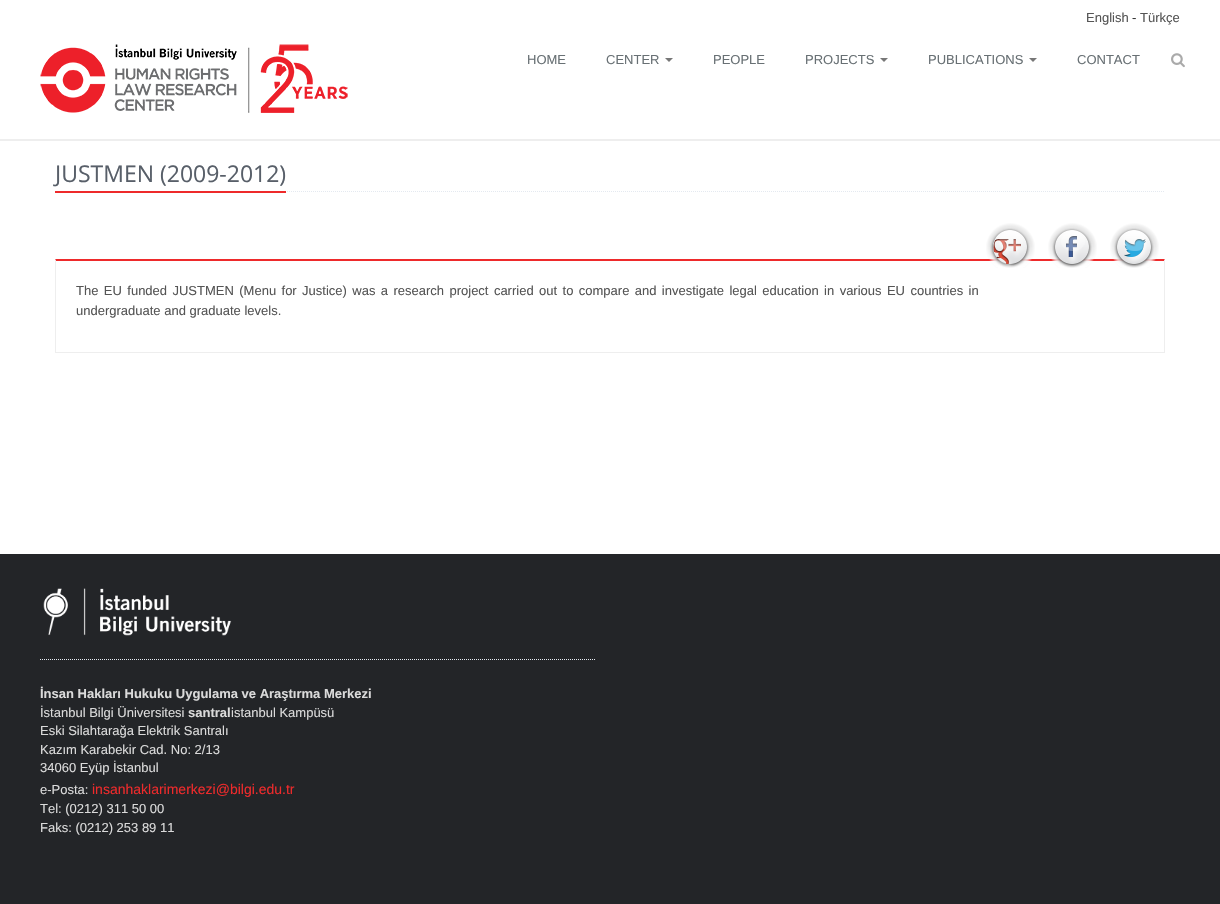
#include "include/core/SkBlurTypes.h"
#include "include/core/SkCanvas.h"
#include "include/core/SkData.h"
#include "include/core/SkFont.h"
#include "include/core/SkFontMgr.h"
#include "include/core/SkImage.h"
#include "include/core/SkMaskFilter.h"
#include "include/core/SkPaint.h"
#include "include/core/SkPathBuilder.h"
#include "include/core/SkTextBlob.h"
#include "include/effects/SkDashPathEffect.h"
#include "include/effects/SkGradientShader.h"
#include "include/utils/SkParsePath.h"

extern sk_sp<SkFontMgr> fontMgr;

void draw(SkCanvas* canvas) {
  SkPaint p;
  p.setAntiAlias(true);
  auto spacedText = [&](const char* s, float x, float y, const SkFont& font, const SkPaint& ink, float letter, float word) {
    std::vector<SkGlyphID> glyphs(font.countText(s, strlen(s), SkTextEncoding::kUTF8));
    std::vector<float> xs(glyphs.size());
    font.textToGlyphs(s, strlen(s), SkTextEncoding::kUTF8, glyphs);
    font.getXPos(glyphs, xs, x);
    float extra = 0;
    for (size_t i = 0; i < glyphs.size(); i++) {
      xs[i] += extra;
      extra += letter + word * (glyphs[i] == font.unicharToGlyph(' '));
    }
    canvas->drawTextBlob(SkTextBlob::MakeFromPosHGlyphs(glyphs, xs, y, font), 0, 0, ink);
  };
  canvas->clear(SK_ColorWHITE);
  p.setColor(SkColorSetRGB(238, 238, 238));
  canvas->drawRect(SkRect::MakeLTRB(0, 139, 1220, 141), p);
  canvas->drawImageRect(SkImages::DeferredFromEncodedData(SkData::MakeFromFileName("images/1.png")), SkRect::MakeLTRB(40, 44, 348, 113), SkSamplingOptions());
  p.setColor(SkColorSetRGB(119, 119, 119));
  canvas->drawPath(SkPathBuilder().moveTo(665, 58).lineTo(673, 58).lineTo(669, 62).close().detach(), p);
  canvas->drawPath(SkPathBuilder().moveTo(880, 58).lineTo(888, 58).lineTo(884, 62).close().detach(), p);
  canvas->drawPath(SkPathBuilder().moveTo(1029, 58).lineTo(1037, 58).lineTo(1033, 62).close().detach(), p);
  canvas->drawImageRect(SkImages::DeferredFromEncodedData(SkData::MakeFromFileName("images/2.png")), SkRect::MakeLTRB(1171, 53, 1185, 68), SkSamplingOptions());
  p.setStyle(SkPaint::kStroke_Style);
  p.setStrokeWidth(1);
  p.setColor(SkColorSetRGB(228, 233, 240));
  p.setPathEffect(SkDashPathEffect::Make({{1, 1}}, 0));
  canvas->drawPath(SkPathBuilder().moveTo(55, 191.5f).lineTo(1165, 191.5f).detach(), p);
  p.setPathEffect(nullptr);
  p.setStyle(SkPaint::kFill_Style);
  p.setColor(SkColorSetRGB(238, 42, 43));
  canvas->drawRect(SkRect::MakeLTRB(55, 191, 286, 193), p);
  canvas->drawPath(SkPathBuilder().moveTo(55, 259).lineTo(1165, 259).lineTo(1164, 261).lineTo(56, 261).close().detach(), p);
  canvas->drawImageRect(SkImages::DeferredFromEncodedData(SkData::MakeFromFileName("images/3.png")), SkRect::MakeLTRB(986, 223, 1035, 268), SkSamplingOptions());
  canvas->drawImageRect(SkImages::DeferredFromEncodedData(SkData::MakeFromFileName("images/4.png")), SkRect::MakeLTRB(1048, 223, 1097, 268), SkSamplingOptions());
  canvas->drawImageRect(SkImages::DeferredFromEncodedData(SkData::MakeFromFileName("images/5.png")), SkRect::MakeLTRB(1110, 223, 1159, 268), SkSamplingOptions());
  p.setColor(SkColorSetRGB(238, 238, 238));
  canvas->drawPath(SkPathBuilder().moveTo(1165, 259).lineTo(1165, 353).lineTo(1164, 352).lineTo(1164, 261).close().detach(), p);
  canvas->drawRect(SkRect::MakeLTRB(55, 352, 1165, 353), p);
  canvas->drawPath(SkPathBuilder().moveTo(55, 353).lineTo(55, 259).lineTo(56, 261).lineTo(56, 352).close().detach(), p);
  p.setColor(SkColorSetRGB(35, 37, 40));
  canvas->drawRect(SkRect::MakeLTRB(0, 554, 1220, 904), p);
  p.setStyle(SkPaint::kStroke_Style);
  p.setColor(SkColorSetRGB(228, 233, 240));
  p.setPathEffect(SkDashPathEffect::Make({{1, 1}}, 0));
  canvas->drawPath(SkPathBuilder().moveTo(40, 659.5f).lineTo(595, 659.5f).detach(), p);
  p.setPathEffect(nullptr);
  canvas->drawImageRect(SkImages::DeferredFromEncodedData(SkData::MakeFromFileName("images/6.png")), SkRect::MakeLTRB(43, 588, 232, 636), SkSamplingOptions());
  SkFont font1(fontMgr->matchFamilyStyle("Liberation Sans", SkFontStyle::Normal()), 13);
  font1.setSubpixel(true);
  p.setStyle(SkPaint::kFill_Style);
  p.setColor(SkColorSetRGB(85, 85, 85));
  canvas->drawString("English", 1086, 22, font1, p);
  p.setColor(SkColorSetRGB(51, 51, 51));
  canvas->drawString("-", 1132, 22, font1, p);
  p.setColor(SkColorSetRGB(85, 85, 85));
  canvas->drawString("Türkçe", 1140, 22, font1, p);
  p.setColor(SkColorSetRGB(104, 112, 116));
  canvas->drawString("HOME", 527, 64, font1, p);
  canvas->drawString("CENTER", 606, 64, font1, p);
  canvas->drawString("PEOPLE", 713, 64, font1, p);
  canvas->drawString("PROJECTS", 805, 64, font1, p);
  canvas->drawString("PUBLICATIONS", 928, 64, font1, p);
  canvas->drawString("CONTACT", 1077, 64, font1, p);
  SkFont font2(fontMgr->matchFamilyStyle("Open Sans", SkFontStyle::Normal()), 23);
  font2.setSubpixel(true);
  p.setColor(SkColorSetRGB(88, 95, 105));
  canvas->drawString("JUSTMEN (2009-2012)", 55, 182, font2, p);
  p.setColor(SkColorSetRGB(85, 85, 85));
  spacedText("The EU funded JUSTMEN (Menu for Justice) was a research project carried out to compare and investigate legal education in various EU countries in", 76, 295, font1, p, 0, 1.8f);
  canvas->drawString("undergraduate and graduate levels.", 76, 315, font1, p);
  SkFont font3(fontMgr->matchFamilyStyle("Liberation Sans", SkFontStyle::Bold()), 13);
  font3.setSubpixel(true);
  p.setColor(SkColorSetRGB(218, 218, 218));
  canvas->drawString("İnsan Hakları Hukuku Uygulama ve Araştırma Merkezi", 40, 698, font3, p);
  canvas->drawString("İstanbul Bilgi Üniversitesi", 40, 717, font1, p);
  canvas->drawString("santral", 188, 717, font3, p);
  canvas->drawString("istanbul Kampüsü", 231, 717, font1, p);
  canvas->drawString("Eski Silahtarağa Elektrik Santralı", 40, 735, font1, p);
  canvas->drawString("Kazım Karabekir Cad. No: 2/13", 40, 754, font1, p);
  canvas->drawString("34060 Eyüp İstanbul", 40, 772, font1, p);
  canvas->drawString("e-Posta:", 40, 794, font1, p);
  SkFont font4(fontMgr->matchFamilyStyle("Liberation Sans", SkFontStyle::Normal()), 14);
  font4.setSubpixel(true);
  p.setColor(SkColorSetRGB(238, 42, 43));
  canvas->drawString("insanhaklarimerkezi@bilgi.edu.tr", 92, 794, font4, p);
  p.setColor(SkColorSetRGB(218, 218, 218));
  canvas->drawString("Tel: (0212) 311 50 00", 40, 813, font1, p);
  canvas->drawString("Faks: (0212) 253 89 11", 40, 832, font1, p);
}
